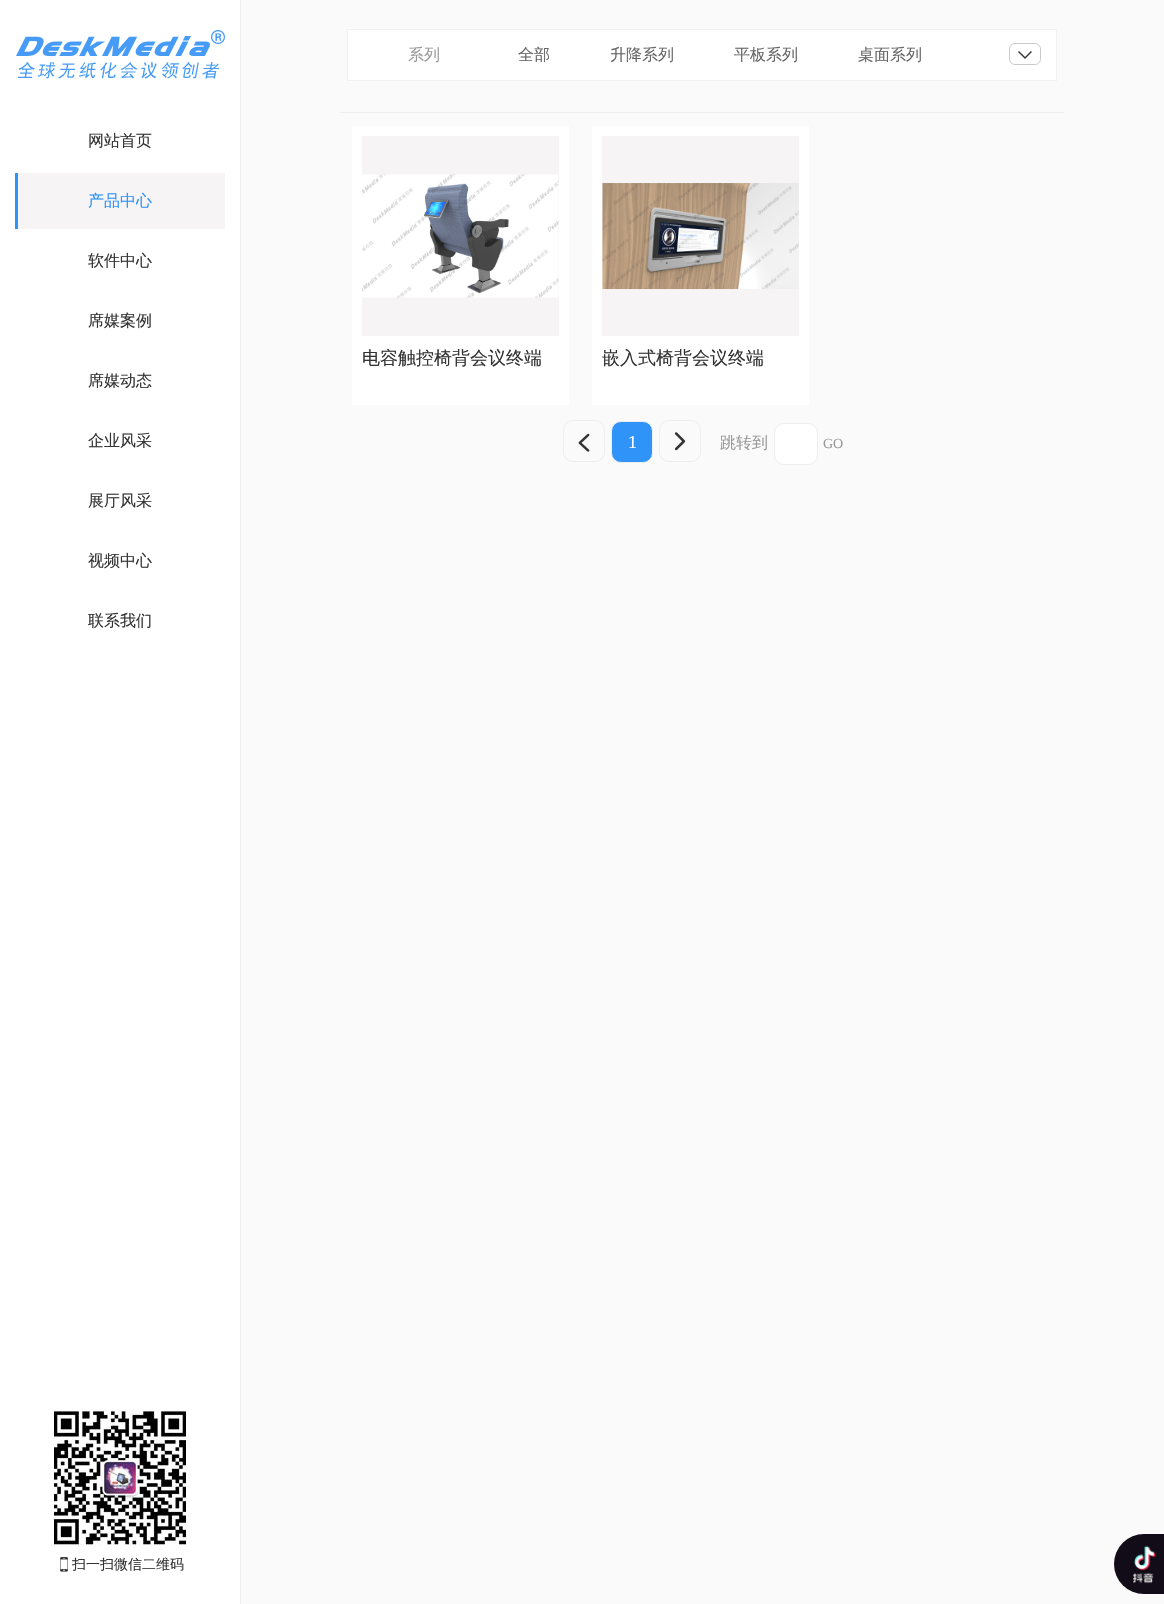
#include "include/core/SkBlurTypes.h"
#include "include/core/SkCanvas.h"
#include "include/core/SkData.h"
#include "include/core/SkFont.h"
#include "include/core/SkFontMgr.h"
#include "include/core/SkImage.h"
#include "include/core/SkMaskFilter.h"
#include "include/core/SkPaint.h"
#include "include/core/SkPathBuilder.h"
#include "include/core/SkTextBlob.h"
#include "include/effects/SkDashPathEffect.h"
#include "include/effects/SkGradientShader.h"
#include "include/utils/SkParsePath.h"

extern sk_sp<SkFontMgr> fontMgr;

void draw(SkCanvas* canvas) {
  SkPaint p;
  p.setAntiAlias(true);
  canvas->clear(SkColorSetRGB(250, 250, 250));
  p.setColor(SK_ColorWHITE);
  canvas->drawRect(SkRect::MakeLTRB(0, 0, 240, 1604), p);
  p.setColor(SkColorSetRGB(238, 238, 238));
  canvas->drawRect(SkRect::MakeLTRB(240, 0, 241, 1604), p);
  canvas->drawImageRect(SkImages::DeferredFromEncodedData(SkData::MakeFromFileName("images/1.png")), SkRect::MakeLTRB(16, 30, 225, 79), SkSamplingOptions());
  p.setColor(SkColorSetRGB(246, 244, 244));
  canvas->drawRect(SkRect::MakeLTRB(18, 173, 225, 229), p);
  p.setColor(SkColorSetRGB(47, 147, 247));
  canvas->drawRect(SkRect::MakeLTRB(15, 173, 18, 229), p);
  canvas->drawImageRect(SkImages::DeferredFromEncodedData(SkData::MakeFromFileName("images/2.png")), SkRect::MakeLTRB(53, 1410, 187, 1545), SkSamplingOptions());
  canvas->drawImageRect(SkImages::DeferredFromEncodedData(SkData::MakeFromFileName("images/3.png")), SkRect::MakeLTRB(60, 1557, 68, 1572), SkSamplingOptions());
  p.setColor(SK_ColorWHITE);
  canvas->drawRect(SkRect::MakeLTRB(347.5f, 29.5f, 1056.5f, 80.5f), p);
  p.setStyle(SkPaint::kStroke_Style);
  p.setStrokeWidth(1);
  p.setColor(SkColorSetRGB(241, 241, 241));
  canvas->drawRect(SkRect::MakeLTRB(347.5f, 29.5f, 1056.5f, 80.5f), p);
  p.setColor(SkColorSetRGB(202, 202, 202));
  canvas->drawRoundRect(SkRect::MakeLTRB(1009.5f, 43.5f, 1040.5f, 64.5f), 5.5f, 5.5f, p);
  canvas->drawImageRect(SkImages::DeferredFromEncodedData(SkData::MakeFromFileName("images/4.png")), SkRect::MakeLTRB(1018, 51, 1032, 59), SkSamplingOptions());
  p.setStyle(SkPaint::kFill_Style);
  p.setColor(SkColorSetRGB(238, 238, 238));
  canvas->drawRect(SkRect::MakeLTRB(340, 112, 1064, 113), p);
  p.setColor(SK_ColorWHITE);
  canvas->drawRect(SkRect::MakeLTRB(352, 126, 569, 405), p);
  p.setColor(SkColorSetRGB(246, 244, 244));
  canvas->drawRect(SkRect::MakeLTRB(362, 136, 559, 336), p);
  canvas->drawImageRect(SkImages::DeferredFromEncodedData(SkData::MakeFromFileName("images/5.png")), SkRect::MakeLTRB(362, 174, 559, 298), SkSamplingOptions());
  p.setColor(SK_ColorWHITE);
  canvas->drawRect(SkRect::MakeLTRB(592, 126, 809, 405), p);
  p.setColor(SkColorSetRGB(246, 244, 244));
  canvas->drawRect(SkRect::MakeLTRB(602, 136, 799, 336), p);
  canvas->drawImageRect(SkImages::DeferredFromEncodedData(SkData::MakeFromFileName("images/6.png")), SkRect::MakeLTRB(602, 183, 799, 290), SkSamplingOptions());
  p.setStyle(SkPaint::kStroke_Style);
  p.setColor(SkColorSetRGB(238, 238, 238));
  canvas->drawRoundRect(SkRect::MakeLTRB(563.5f, 420.5f, 604.5f, 461.5f), 9.5f, 9.5f, p);
  canvas->drawImageRect(SkImages::DeferredFromEncodedData(SkData::MakeFromFileName("images/7.png")), SkRect::MakeLTRB(578, 433, 590, 452), SkSamplingOptions());
  p.setStyle(SkPaint::kFill_Style);
  p.setColor(SkColorSetRGB(47, 147, 247));
  canvas->drawRoundRect(SkRect::MakeLTRB(611.5f, 421.5f, 652.5f, 462.5f), 9.5f, 9.5f, p);
  p.setStyle(SkPaint::kStroke_Style);
  p.setColor(SkColorSetRGB(238, 238, 238));
  canvas->drawRoundRect(SkRect::MakeLTRB(611.5f, 421.5f, 652.5f, 462.5f), 9.5f, 9.5f, p);
  canvas->drawRoundRect(SkRect::MakeLTRB(659.5f, 420.5f, 700.5f, 461.5f), 9.5f, 9.5f, p);
  canvas->drawImageRect(SkImages::DeferredFromEncodedData(SkData::MakeFromFileName("images/8.png")), SkRect::MakeLTRB(674, 432, 686, 451), SkSamplingOptions());
  p.setStyle(SkPaint::kFill_Style);
  p.setColor(SK_ColorWHITE);
  canvas->drawRoundRect(SkRect::MakeLTRB(774.5f, 423.5f, 817.5f, 464.5f), 9.5f, 9.5f, p);
  p.setStyle(SkPaint::kStroke_Style);
  p.setColor(SkColorSetRGB(238, 238, 238));
  canvas->drawRoundRect(SkRect::MakeLTRB(774.5f, 423.5f, 817.5f, 464.5f), 9.5f, 9.5f, p);
  canvas->drawImageRect(SkImages::DeferredFromEncodedData(SkData::MakeFromFileName("images/9.png")), SkRect::MakeLTRB(1114, 1534, 1164, 1594), SkSamplingOptions());
  SkFont font1(fontMgr->matchFamilyStyle("WenQuanYi Zen Hei", SkFontStyle(500, SkFontStyle::kNormal_Width, SkFontStyle::kUpright_Slant)), 16);
  font1.setSubpixel(true);
  p.setStyle(SkPaint::kFill_Style);
  p.setColor(SkColorSetRGB(51, 51, 51));
  canvas->drawString("网站首页", 88, 146, font1, p);
  p.setColor(SkColorSetRGB(47, 147, 247));
  canvas->drawString("产品中心", 88, 206, font1, p);
  p.setColor(SkColorSetRGB(51, 51, 51));
  canvas->drawString("软件中心", 88, 266, font1, p);
  canvas->drawString("席媒案例", 88, 326, font1, p);
  canvas->drawString("席媒动态", 88, 386, font1, p);
  canvas->drawString("企业风采", 88, 446, font1, p);
  canvas->drawString("展厅风采", 88, 506, font1, p);
  canvas->drawString("视频中心", 88, 566, font1, p);
  canvas->drawString("联系我们", 88, 626, font1, p);
  SkFont font2(fontMgr->matchFamilyStyle("WenQuanYi Zen Hei", SkFontStyle(500, SkFontStyle::kNormal_Width, SkFontStyle::kUpright_Slant)), 14);
  font2.setSubpixel(true);
  canvas->drawString("扫一扫微信二维码", 72, 1569, font2, p);
  p.setColor(SkColorSetRGB(153, 153, 153));
  canvas->drawString("系列", 408, 60, font1, p);
  p.setColor(SkColorSetRGB(102, 102, 102));
  canvas->drawString("全部", 518, 60, font1, p);
  canvas->drawString("升降系列", 610, 60, font1, p);
  canvas->drawString("平板系列", 734, 60, font1, p);
  canvas->drawString("桌面系列", 858, 60, font1, p);
  SkFont font3(fontMgr->matchFamilyStyle("WenQuanYi Zen Hei", SkFontStyle(500, SkFontStyle::kNormal_Width, SkFontStyle::kUpright_Slant)), 18);
  font3.setSubpixel(true);
  p.setColor(SkColorSetRGB(51, 51, 51));
  canvas->drawString("电容触控椅背会议终端", 362, 364, font3, p);
  canvas->drawString("嵌入式椅背会议终端", 602, 364, font3, p);
  SkFont font4(fontMgr->matchFamilyStyle("Liberation Serif", SkFontStyle::Normal()), 18);
  font4.setSubpixel(true);
  p.setColor(SK_ColorWHITE);
  canvas->drawString("1", 628, 448, font4, p);
  p.setColor(SkColorSetRGB(153, 153, 153));
  canvas->drawString("跳转到", 720, 448, font1, p);
  SkFont font5(fontMgr->matchFamilyStyle("Liberation Serif", SkFontStyle::Normal()), 14);
  font5.setSubpixel(true);
  canvas->drawString("GO", 823, 448, font5, p);
}
